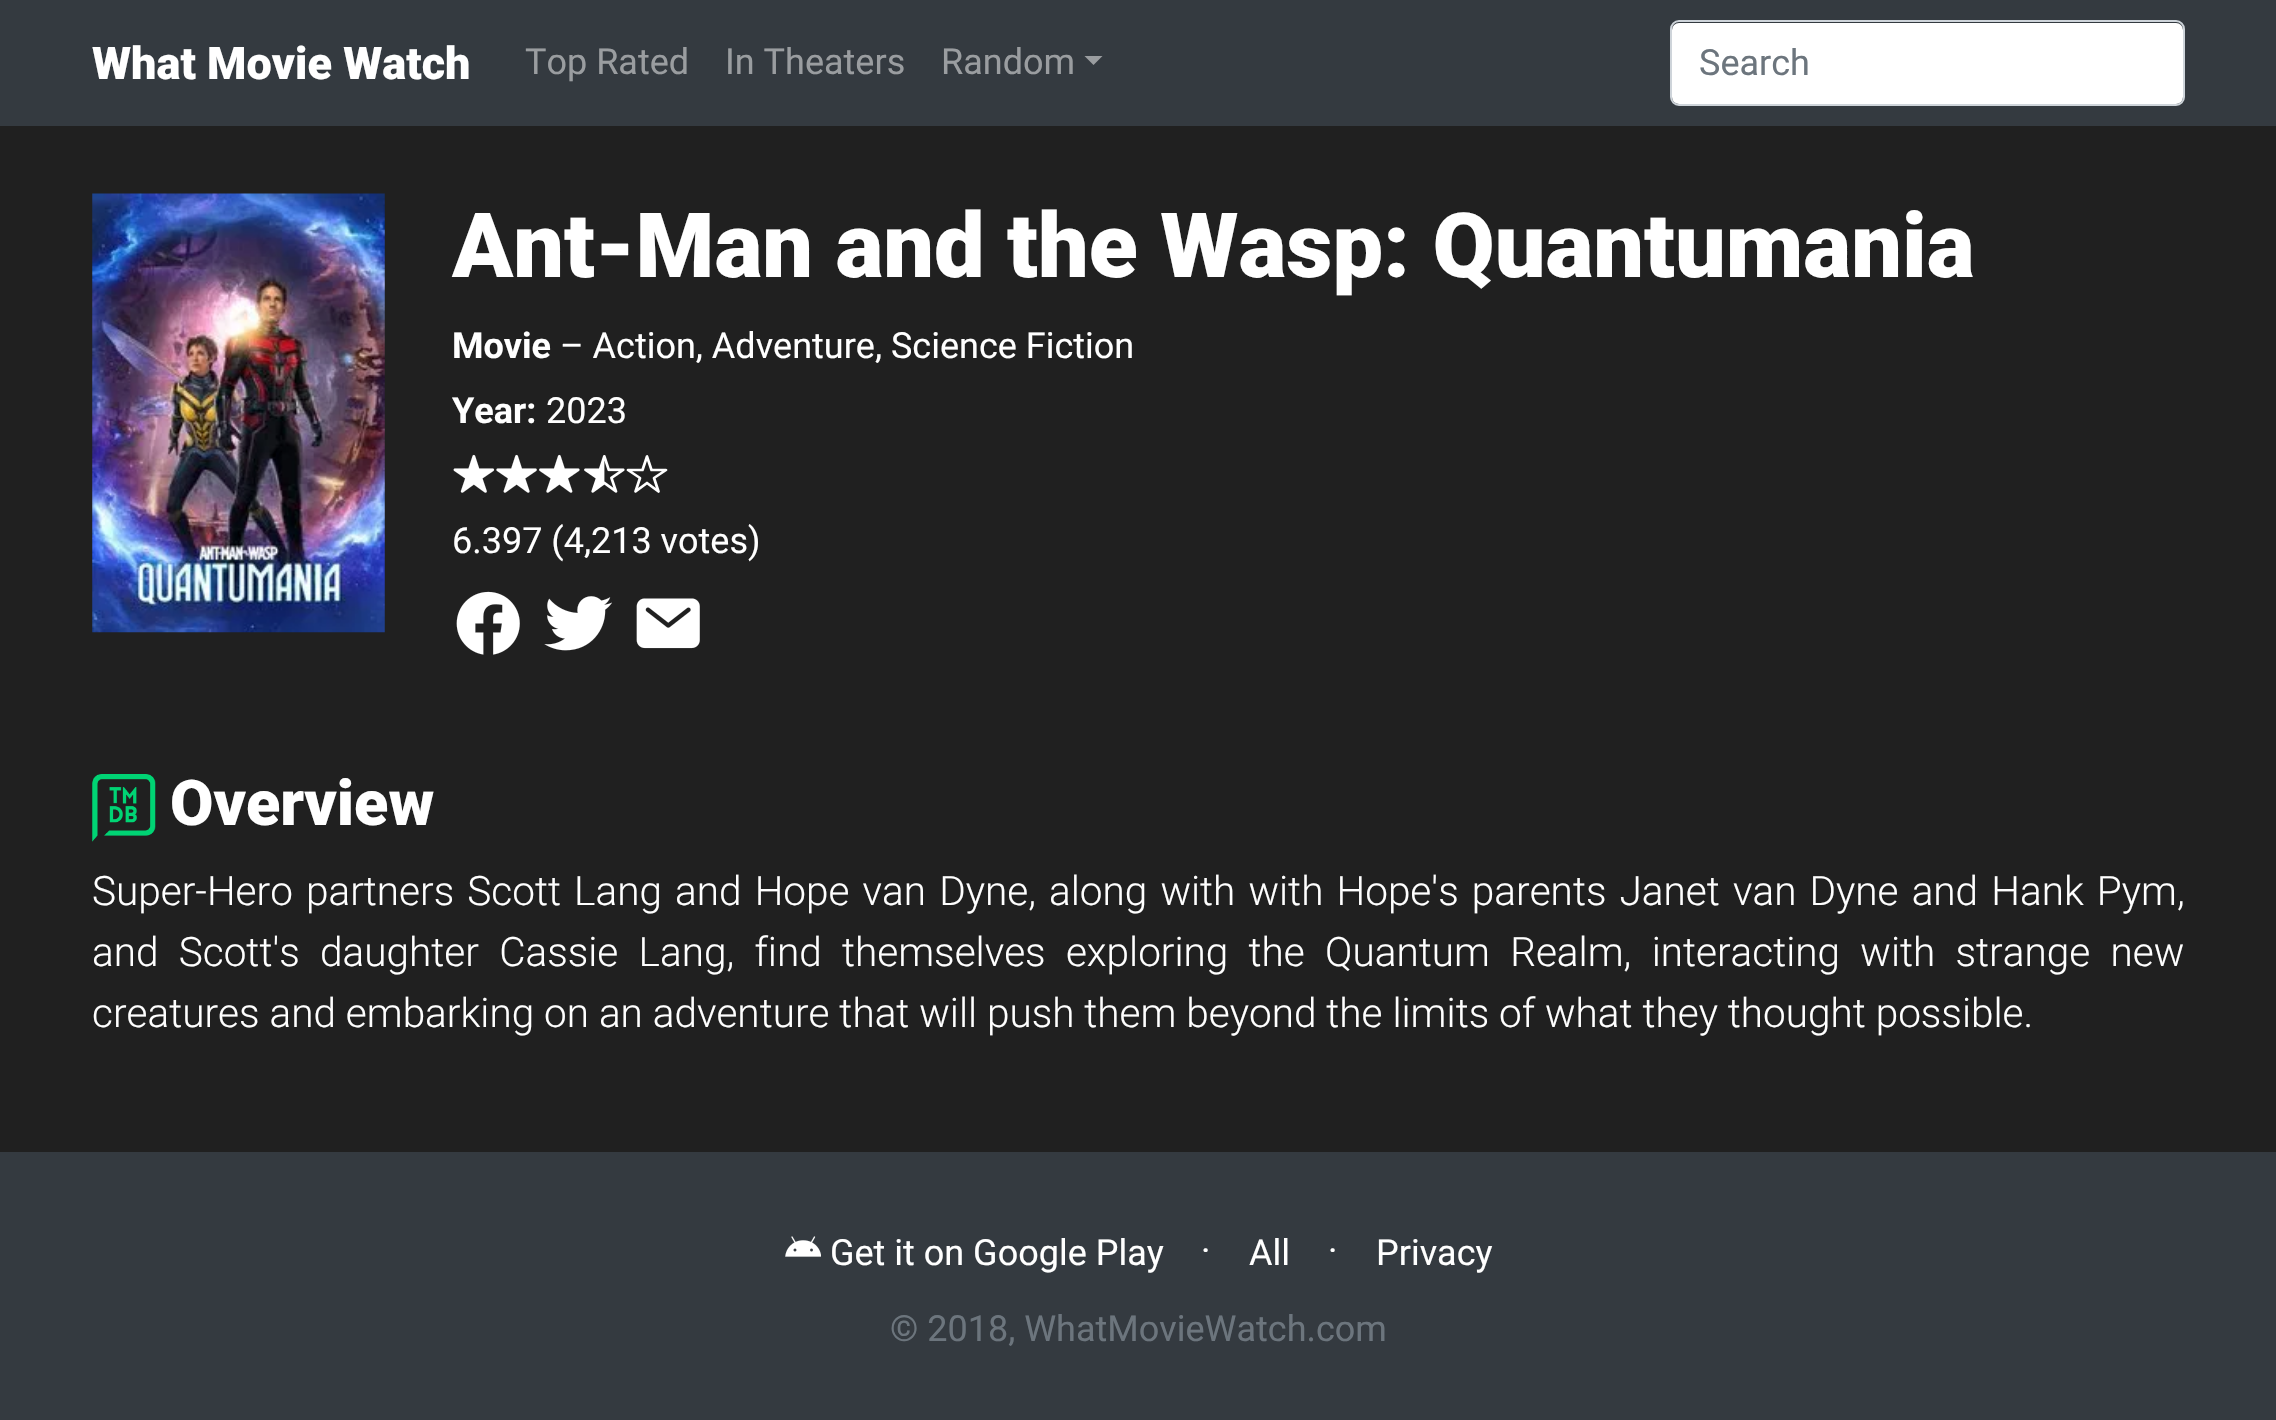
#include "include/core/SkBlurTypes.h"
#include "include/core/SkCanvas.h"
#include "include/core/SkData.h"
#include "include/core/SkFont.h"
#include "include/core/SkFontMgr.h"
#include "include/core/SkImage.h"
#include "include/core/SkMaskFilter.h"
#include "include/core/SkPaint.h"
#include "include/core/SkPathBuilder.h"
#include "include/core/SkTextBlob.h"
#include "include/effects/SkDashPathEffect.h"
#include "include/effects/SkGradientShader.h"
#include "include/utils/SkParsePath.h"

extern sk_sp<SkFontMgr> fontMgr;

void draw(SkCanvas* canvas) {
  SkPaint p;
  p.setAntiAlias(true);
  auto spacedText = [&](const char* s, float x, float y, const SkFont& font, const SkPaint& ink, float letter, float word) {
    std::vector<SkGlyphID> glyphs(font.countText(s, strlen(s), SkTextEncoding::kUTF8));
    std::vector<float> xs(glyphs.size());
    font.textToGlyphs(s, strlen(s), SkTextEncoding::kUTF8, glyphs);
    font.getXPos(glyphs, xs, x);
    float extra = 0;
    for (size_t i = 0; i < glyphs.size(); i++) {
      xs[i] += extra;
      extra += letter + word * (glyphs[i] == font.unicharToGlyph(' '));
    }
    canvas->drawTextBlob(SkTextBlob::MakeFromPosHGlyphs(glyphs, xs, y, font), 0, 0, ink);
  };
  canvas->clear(SkColorSetRGB(32, 32, 32));
  p.setColor(SkColorSetRGB(52, 58, 64));
  canvas->drawRect(SkRect::MakeLTRB(0, 0, 2276, 126), p);
  p.setColor(SkColorSetRGB(154, 157, 160));
  canvas->drawPath(SkPathBuilder().moveTo(1084.5f, 56).lineTo(1102.5f, 56).lineTo(1093.5f, 65).close().detach(), p);
  p.setColor(SK_ColorWHITE);
  canvas->drawRoundRect(SkRect::MakeLTRB(1672, 23, 2183, 104), 7, 7, p);
  p.setStyle(SkPaint::kStroke_Style);
  p.setStrokeWidth(2);
  p.setColor(SkColorSetRGB(206, 212, 218));
  canvas->drawRoundRect(SkRect::MakeLTRB(1671, 21, 2184, 105), 8, 8, p);
  canvas->drawImageRect(SkImages::DeferredFromEncodedData(SkData::MakeFromFileName("images/1.png")), SkRect::MakeLTRB(92, 193, 385, 633), SkSamplingOptions());
  canvas->drawImageRect(SkImages::DeferredFromEncodedData(SkData::MakeFromFileName("images/2.png")), SkRect::MakeLTRB(453, 454, 495, 493), SkSamplingOptions());
  canvas->drawImageRect(SkImages::DeferredFromEncodedData(SkData::MakeFromFileName("images/3.png")), SkRect::MakeLTRB(496, 454, 537, 493), SkSamplingOptions());
  canvas->drawImageRect(SkImages::DeferredFromEncodedData(SkData::MakeFromFileName("images/4.png")), SkRect::MakeLTRB(539, 454, 580, 493), SkSamplingOptions());
  canvas->drawImageRect(SkImages::DeferredFromEncodedData(SkData::MakeFromFileName("images/5.png")), SkRect::MakeLTRB(584, 455, 625, 493), SkSamplingOptions());
  p.setStrokeWidth(2.7f);
  p.setStrokeJoin(SkPaint::kRound_Join);
  p.setColor(SK_ColorWHITE);
  canvas->drawPath(SkPathBuilder().moveTo(666, 470).lineTo(651.5f, 470).lineTo(647, 456.5f).lineTo(642.5f, 470).lineTo(628, 470).lineTo(640, 478).lineTo(635.5f, 491.5f).lineTo(647, 483).lineTo(658.5f, 491.5f).lineTo(654, 478).close().detach(), p);
  canvas->drawImageRect(SkImages::DeferredFromEncodedData(SkData::MakeFromFileName("images/6.png")), SkRect::MakeLTRB(456, 591, 520, 655), SkSamplingOptions());
  canvas->drawImageRect(SkImages::DeferredFromEncodedData(SkData::MakeFromFileName("images/7.png")), SkRect::MakeLTRB(544, 596, 612, 651), SkSamplingOptions());
  canvas->drawImageRect(SkImages::DeferredFromEncodedData(SkData::MakeFromFileName("images/8.png")), SkRect::MakeLTRB(636, 598, 700, 649), SkSamplingOptions());
  canvas->drawImageRect(SkImages::DeferredFromEncodedData(SkData::MakeFromFileName("images/9.png")), SkRect::MakeLTRB(92, 774, 156, 842), SkSamplingOptions());
  p.setStyle(SkPaint::kFill_Style);
  p.setColor(SkColorSetRGB(52, 58, 64));
  canvas->drawRect(SkRect::MakeLTRB(0, 1152, 2276, 1420), p);
  canvas->drawImageRect(SkImages::DeferredFromEncodedData(SkData::MakeFromFileName("images/10.png")), SkRect::MakeLTRB(785, 1236, 821, 1257), SkSamplingOptions());
  SkFont font1(fontMgr->matchFamilyStyle("Roboto", SkFontStyle(900, SkFontStyle::kNormal_Width, SkFontStyle::kUpright_Slant)), 45);
  font1.setSubpixel(true);
  p.setColor(SK_ColorWHITE);
  canvas->drawString("What Movie Watch", 92, 79, font1, p);
  SkFont font2(fontMgr->matchFamilyStyle("Roboto", SkFontStyle::Normal()), 36);
  font2.setSubpixel(true);
  p.setColor(SkColorSetRGB(154, 157, 160));
  canvas->drawString("Top Rated", 525, 74, font2, p);
  canvas->drawString("In Theaters", 725, 74, font2, p);
  canvas->drawString("Random", 941, 74, font2, p);
  p.setColor(SkColorSetRGB(108, 117, 125));
  canvas->drawString("Search", 1699, 75, font2, p);
  SkFont font3(fontMgr->matchFamilyStyle("Roboto", SkFontStyle(900, SkFontStyle::kNormal_Width, SkFontStyle::kUpright_Slant)), 90);
  font3.setSubpixel(true);
  p.setColor(SK_ColorWHITE);
  canvas->drawString("Ant-Man and the Wasp: Quantumania", 452, 277, font3, p);
  SkFont font4(fontMgr->matchFamilyStyle("Roboto", SkFontStyle::Bold()), 36);
  font4.setSubpixel(true);
  canvas->drawString("Movie", 452, 358, font4, p);
  canvas->drawString("– Action, Adventure, Science Fiction", 560, 358, font2, p);
  canvas->drawString("Year:", 452, 423, font4, p);
  canvas->drawString("2023", 546, 423, font2, p);
  canvas->drawString("6.397 (4,213 votes)", 452, 553, font2, p);
  SkFont font5(fontMgr->matchFamilyStyle("Roboto", SkFontStyle(900, SkFontStyle::kNormal_Width, SkFontStyle::kUpright_Slant)), 63);
  font5.setSubpixel(true);
  canvas->drawString("Overview", 170, 825, font5, p);
  SkFont font6(fontMgr->matchFamilyStyle("Roboto", SkFontStyle(300, SkFontStyle::kNormal_Width, SkFontStyle::kUpright_Slant)), 40.5f);
  font6.setSubpixel(true);
  spacedText("Super-Hero partners Scott Lang and Hope van Dyne, along with with Hope's parents Janet van Dyne and Hank Pym,", 92, 905, font6, p, 0, 3.25f);
  spacedText("and Scott's daughter Cassie Lang, find themselves exploring the Quantum Realm, interacting with strange new", 92, 966, font6, p, 0, 10.4f);
  canvas->drawString("creatures and embarking on an adventure that will push them beyond the limits of what they thought possible.", 92, 1027, font6, p);
  canvas->drawString("Get it on Google Play", 830, 1265, font2, p);
  canvas->drawString("·", 1201, 1263, font2, p);
  canvas->drawString("All", 1249, 1265, font2, p);
  canvas->drawString("·", 1328, 1263, font2, p);
  canvas->drawString("Privacy", 1376, 1265, font2, p);
  p.setColor(SkColorSetRGB(108, 117, 125));
  canvas->drawString("© 2018, WhatMovieWatch.com", 890, 1341, font2, p);
}
